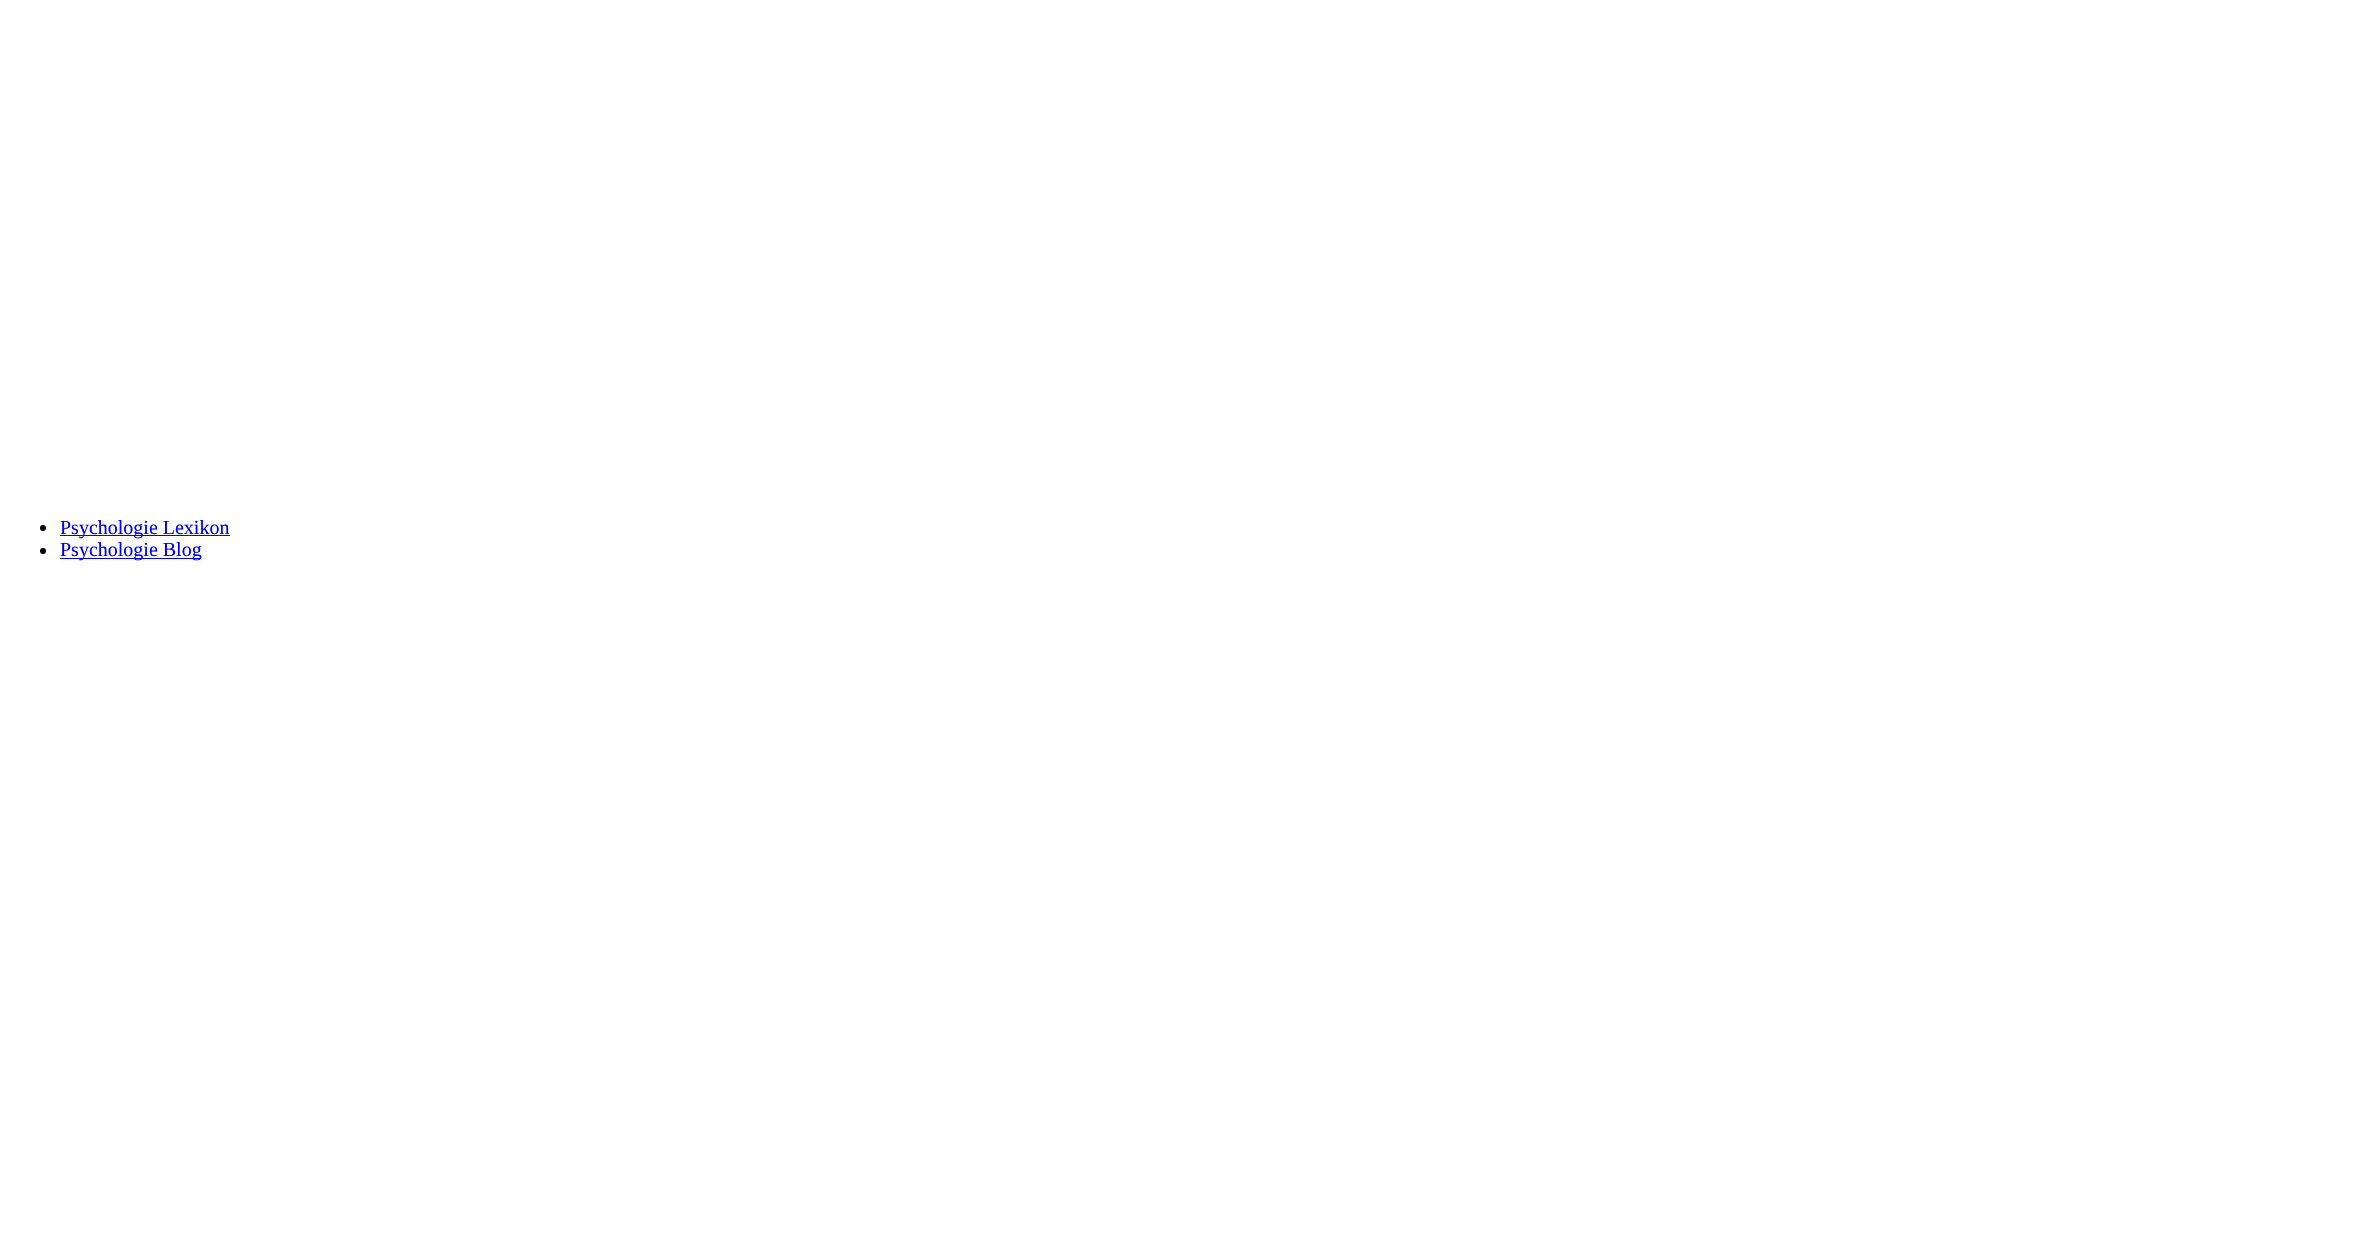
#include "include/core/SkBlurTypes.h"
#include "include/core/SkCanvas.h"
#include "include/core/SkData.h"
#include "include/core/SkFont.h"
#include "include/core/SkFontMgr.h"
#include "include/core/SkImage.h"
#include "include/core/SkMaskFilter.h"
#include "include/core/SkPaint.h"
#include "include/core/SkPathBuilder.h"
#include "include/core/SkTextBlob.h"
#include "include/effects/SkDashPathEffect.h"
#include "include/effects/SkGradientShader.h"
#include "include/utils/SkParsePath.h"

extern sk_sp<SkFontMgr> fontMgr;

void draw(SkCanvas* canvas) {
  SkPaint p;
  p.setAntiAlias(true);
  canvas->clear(SK_ColorWHITE);
  p.setColor(SK_ColorBLACK);
  canvas->drawCircle(43, 528, 3, p);
  p.setColor(SkColorSetRGB(0, 0, 238));
  canvas->drawRect(SkRect::MakeLTRB(60, 535, 230, 536), p);
  p.setColor(SK_ColorBLACK);
  canvas->drawCircle(43, 551, 3, p);
  p.setColor(SkColorSetRGB(0, 0, 238));
  canvas->drawRect(SkRect::MakeLTRB(60, 558, 201, 559), p);
  SkFont font1(fontMgr->matchFamilyStyle("Liberation Serif", SkFontStyle::Normal()), 20);
  font1.setSubpixel(true);
  canvas->drawString("Psychologie Lexikon", 60, 534, font1, p);
  canvas->drawString("Psychologie Blog", 60, 556, font1, p);
}
